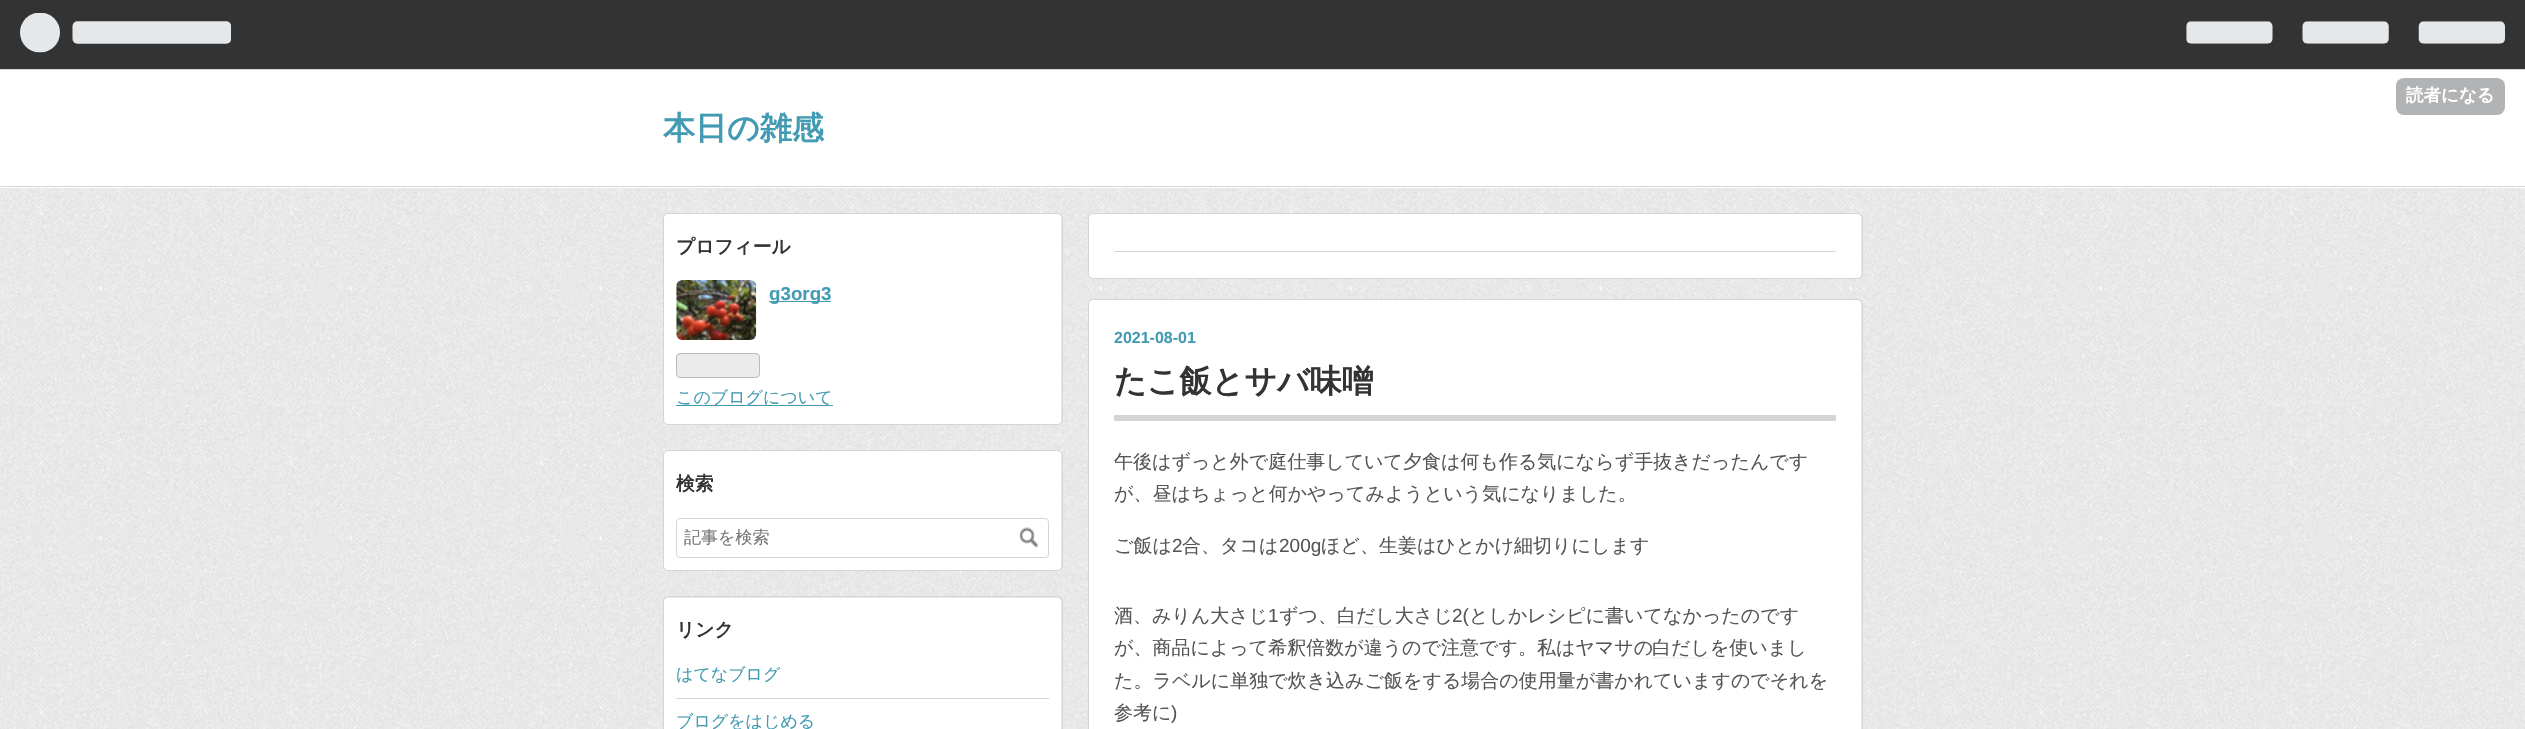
#include "include/core/SkBlurTypes.h"
#include "include/core/SkCanvas.h"
#include "include/core/SkData.h"
#include "include/core/SkFont.h"
#include "include/core/SkFontMgr.h"
#include "include/core/SkImage.h"
#include "include/core/SkMaskFilter.h"
#include "include/core/SkPaint.h"
#include "include/core/SkPathBuilder.h"
#include "include/core/SkTextBlob.h"
#include "include/effects/SkDashPathEffect.h"
#include "include/effects/SkGradientShader.h"
#include "include/utils/SkParsePath.h"

extern sk_sp<SkFontMgr> fontMgr;

void draw(SkCanvas* canvas) {
  SkPaint p;
  p.setAntiAlias(true);
  canvas->clear(SK_ColorWHITE);
  canvas->drawImageRect(SkImages::DeferredFromEncodedData(SkData::MakeFromFileName("images/1.png")), SkRect::MakeLTRB(0, 188, 2525, 729), SkSamplingOptions());
  p.setColor(SkColorSetRGB(51, 51, 51));
  canvas->drawRect(SkRect::MakeLTRB(0, 0, 2525, 69), p);
  p.setColor(SkColorSetRGB(210, 216, 221));
  canvas->drawRect(SkRect::MakeLTRB(0, 69, 2525, 70), p);
  canvas->drawImageRect(SkImages::DeferredFromEncodedData(SkData::MakeFromFileName("images/2.png")), SkRect::MakeLTRB(20, 13, 231, 53), SkSamplingOptions());
  canvas->drawImageRect(SkImages::DeferredFromEncodedData(SkData::MakeFromFileName("images/3.png")), SkRect::MakeLTRB(2186, 21, 2505, 44), SkSamplingOptions());
  p.setColor(SkColorSetRGB(177, 179, 181));
  canvas->drawRoundRect(SkRect::MakeLTRB(2396, 78, 2505, 115), 8, 8, p);
  p.setColor(SkColorSetRGB(213, 213, 213));
  canvas->drawRect(SkRect::MakeLTRB(0, 186, 2525, 187), p);
  p.setColor(SK_ColorWHITE);
  canvas->drawRoundRect(SkRect::MakeLTRB(664, 214, 1061, 424), 4, 4, p);
  p.setStyle(SkPaint::kStroke_Style);
  p.setStrokeWidth(1);
  p.setColor(SkColorSetRGB(213, 213, 213));
  canvas->drawRoundRect(SkRect::MakeLTRB(663.5f, 213.5f, 1062.5f, 424.5f), 4.5f, 4.5f, p);
  canvas->drawImageRect(SkImages::DeferredFromEncodedData(SkData::MakeFromFileName("images/4.png")), SkRect::MakeLTRB(676, 280, 757, 340), SkSamplingOptions());
  p.setStyle(SkPaint::kFill_Style);
  p.setColor(SkColorSetRGB(66, 155, 178));
  canvas->drawRect(SkRect::MakeLTRB(769, 301, 831, 302), p);
  p.setColor(SkColorSetRGB(235, 235, 235));
  canvas->drawRoundRect(SkRect::MakeLTRB(676.5f, 353.5f, 759.5f, 377.5f), 3.5f, 3.5f, p);
  p.setStyle(SkPaint::kStroke_Style);
  p.setColor(SkColorSetRGB(187, 187, 187));
  canvas->drawRoundRect(SkRect::MakeLTRB(676.5f, 353.5f, 759.5f, 377.5f), 3.5f, 3.5f, p);
  p.setStyle(SkPaint::kFill_Style);
  p.setColor(SkColorSetRGB(66, 155, 178));
  canvas->drawRect(SkRect::MakeLTRB(676, 405, 833, 406), p);
  p.setColor(SK_ColorWHITE);
  canvas->drawRoundRect(SkRect::MakeLTRB(664, 451, 1061, 570), 4, 4, p);
  p.setStyle(SkPaint::kStroke_Style);
  p.setColor(SkColorSetRGB(213, 213, 213));
  canvas->drawRoundRect(SkRect::MakeLTRB(663.5f, 450.5f, 1062.5f, 570.5f), 4.5f, 4.5f, p);
  canvas->drawRoundRect(SkRect::MakeLTRB(676.5f, 518.5f, 1048.5f, 557.5f), 3.5f, 3.5f, p);
  canvas->drawImageRect(SkImages::DeferredFromEncodedData(SkData::MakeFromFileName("images/5.png")), SkRect::MakeLTRB(1019, 527, 1039, 548), SkSamplingOptions());
  p.setStyle(SkPaint::kFill_Style);
  p.setColor(SK_ColorWHITE);
  canvas->drawRoundRect(SkRect::MakeLTRB(664, 598, 1061, 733), 4, 4, p);
  p.setStyle(SkPaint::kStroke_Style);
  p.setColor(SkColorSetRGB(213, 213, 213));
  canvas->drawRoundRect(SkRect::MakeLTRB(663.5f, 596.5f, 1062.5f, 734.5f), 4.5f, 4.5f, p);
  p.setStyle(SkPaint::kFill_Style);
  canvas->drawRect(SkRect::MakeLTRB(676, 698, 1049, 699), p);
  p.setColor(SK_ColorWHITE);
  canvas->drawRoundRect(SkRect::MakeLTRB(1089, 214, 1861, 278), 4, 4, p);
  p.setStyle(SkPaint::kStroke_Style);
  p.setColor(SkColorSetRGB(213, 213, 213));
  canvas->drawRoundRect(SkRect::MakeLTRB(1088.5f, 213.5f, 1862.5f, 278.5f), 4.5f, 4.5f, p);
  p.setStyle(SkPaint::kFill_Style);
  canvas->drawRect(SkRect::MakeLTRB(1114, 251, 1836, 252), p);
  p.setColor(SK_ColorWHITE);
  canvas->drawRoundRect(SkRect::MakeLTRB(1089, 300, 1861, 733), 4, 4, p);
  p.setStyle(SkPaint::kStroke_Style);
  p.setColor(SkColorSetRGB(213, 213, 213));
  canvas->drawRoundRect(SkRect::MakeLTRB(1088.5f, 299.5f, 1862.5f, 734.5f), 4.5f, 4.5f, p);
  p.setStyle(SkPaint::kFill_Style);
  canvas->drawRect(SkRect::MakeLTRB(1114, 415, 1836, 421), p);
  p.setStyle(SkPaint::kStroke_Style);
  p.setStrokeWidth(1.2f);
  p.setPathEffect(SkDashPathEffect::Make({{1.25f, 1.25f}}, 0));
  canvas->drawPath(SkPathBuilder().moveTo(1336, 627).lineTo(1394, 627).detach(), p);
  p.setPathEffect(nullptr);
  p.setPathEffect(SkDashPathEffect::Make({{1.25f, 1.25f}}, 0));
  canvas->drawPath(SkPathBuilder().moveTo(1652.5f, 658).lineTo(1710, 658).detach(), p);
  p.setPathEffect(nullptr);
  SkFont font1(fontMgr->matchFamilyStyle("WenQuanYi Zen Hei", SkFontStyle::Bold()), 17.5f);
  font1.setSubpixel(true);
  p.setStyle(SkPaint::kFill_Style);
  p.setColor(SK_ColorWHITE);
  canvas->drawString("読者になる", 2406, 101, font1, p);
  SkFont font2(fontMgr->matchFamilyStyle("WenQuanYi Zen Hei", SkFontStyle::Bold()), 32);
  font2.setSubpixel(true);
  p.setColor(SkColorSetRGB(66, 155, 178));
  canvas->drawString("本日の雑感", 663, 139, font2, p);
  SkFont font3(fontMgr->matchFamilyStyle("WenQuanYi Zen Hei", SkFontStyle::Bold()), 18.75f);
  font3.setSubpixel(true);
  p.setColor(SkColorSetRGB(51, 51, 51));
  canvas->drawString("プロフィール", 676, 253, font3, p);
  SkFont font4(fontMgr->matchFamilyStyle("Liberation Sans", SkFontStyle::Bold()), 18.75f);
  font4.setSubpixel(true);
  p.setColor(SkColorSetRGB(66, 155, 178));
  canvas->drawString("g3org3", 769, 300, font4, p);
  SkFont font5(fontMgr->matchFamilyStyle("WenQuanYi Zen Hei", SkFontStyle(500, SkFontStyle::kNormal_Width, SkFontStyle::kUpright_Slant)), 17);
  font5.setSubpixel(true);
  canvas->drawString("このブログについて", 676, 403, font5, p);
  p.setColor(SkColorSetRGB(51, 51, 51));
  canvas->drawString("検索", 676, 490, font3, p);
  p.setColor(SkColorSetRGB(117, 117, 117));
  canvas->drawString("記事を検索", 684, 543, font5, p);
  p.setColor(SkColorSetRGB(51, 51, 51));
  canvas->drawString("リンク", 676, 636, font3, p);
  p.setColor(SkColorSetRGB(66, 155, 178));
  canvas->drawString("はてなブログ", 676, 680, font5, p);
  canvas->drawString("ブログをはじめる", 676, 727, font5, p);
  SkFont font6(fontMgr->matchFamilyStyle("Liberation Sans", SkFontStyle::Bold()), 16);
  font6.setSubpixel(true);
  canvas->drawString("2021-08-01", 1114, 343, font6, p);
  p.setColor(SkColorSetRGB(51, 51, 51));
  canvas->drawString("たこ飯とサバ味噌", 1114, 392, font2, p);
  SkFont font7(fontMgr->matchFamilyStyle("WenQuanYi Zen Hei", SkFontStyle(500, SkFontStyle::kNormal_Width, SkFontStyle::kUpright_Slant)), 19);
  font7.setSubpixel(true);
  p.setColor(SkColorSetRGB(85, 85, 85));
  canvas->drawString("午後はずっと外で庭仕事していて夕食は何も作る気にならず手抜きだったんです", 1114, 468, font7, p);
  canvas->drawString("が、昼はちょっと何かやってみようという気になりました。", 1114, 500, font7, p);
  canvas->drawString("ご飯は", 1114, 552, font7, p);
  SkFont font8(fontMgr->matchFamilyStyle("Liberation Sans", SkFontStyle::Normal()), 19);
  font8.setSubpixel(true);
  canvas->drawString("2", 1172, 552, font8, p);
  canvas->drawString("合、タコは", 1182, 552, font7, p);
  canvas->drawString("200g", 1279, 552, font8, p);
  canvas->drawString("ほど、生姜はひとかけ細切りにします", 1321, 552, font7, p);
  canvas->drawString("酒、みりん大さじ", 1114, 622, font7, p);
  canvas->drawString("1", 1268, 622, font8, p);
  canvas->drawString("ずつ、白だし大さじ", 1279, 622, font7, p);
  canvas->drawString("2(", 1452, 622, font8, p);
  canvas->drawString("としかレシピに書いてなかったのです", 1469, 622, font7, p);
  canvas->drawString("が、商品によって希釈倍数が違うので注意です。私はヤマサの", 1114, 654, font7, p);
  canvas->drawString("白だしを使いまし", 1652, 654, font7, p);
  canvas->drawString("た。ラベルに単独で炊き込みご飯をする場合の使用量が書かれていますのでそれを", 1114, 687, font7, p);
  canvas->drawString("参考に", 1114, 719, font7, p);
  canvas->drawString(")", 1171, 719, font8, p);
}
